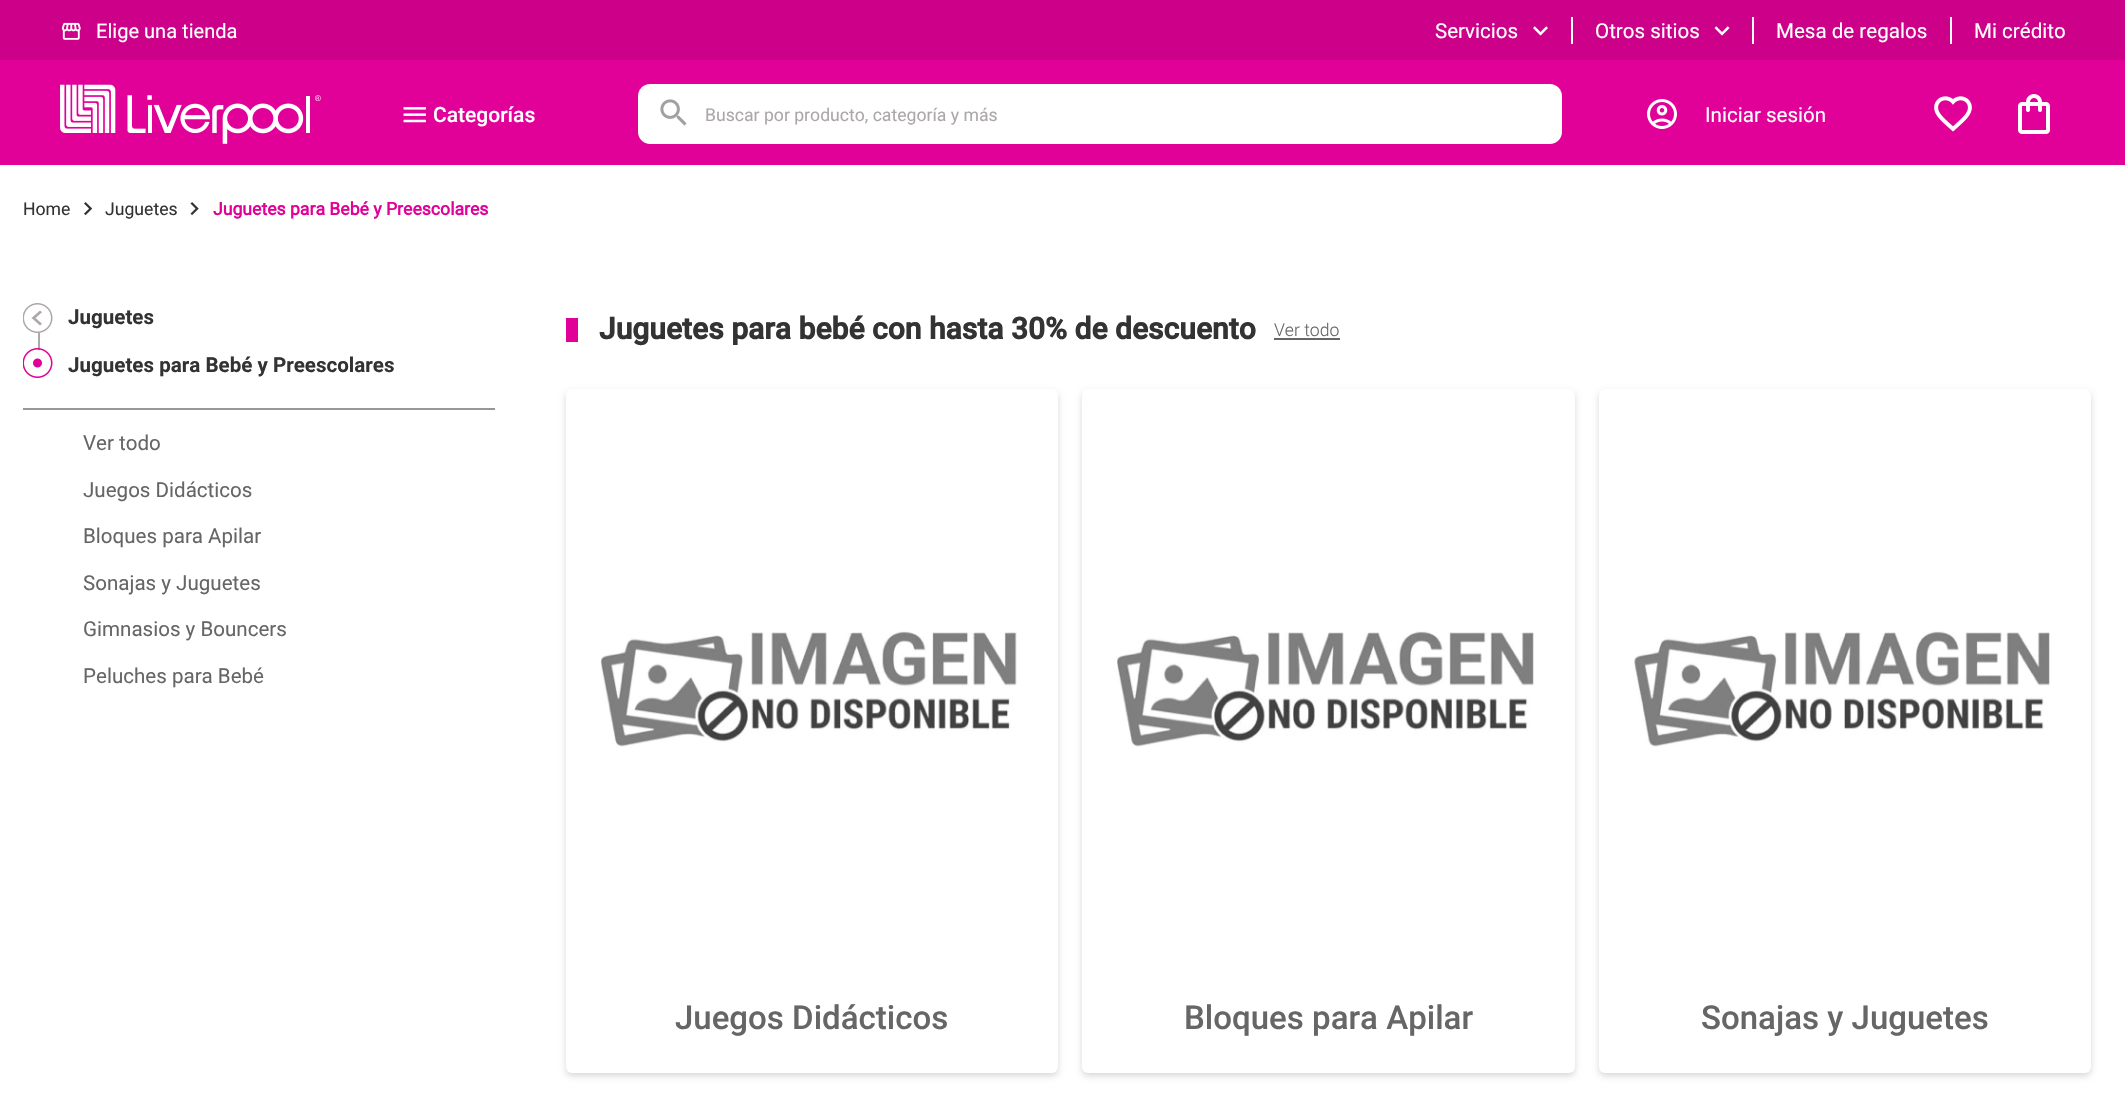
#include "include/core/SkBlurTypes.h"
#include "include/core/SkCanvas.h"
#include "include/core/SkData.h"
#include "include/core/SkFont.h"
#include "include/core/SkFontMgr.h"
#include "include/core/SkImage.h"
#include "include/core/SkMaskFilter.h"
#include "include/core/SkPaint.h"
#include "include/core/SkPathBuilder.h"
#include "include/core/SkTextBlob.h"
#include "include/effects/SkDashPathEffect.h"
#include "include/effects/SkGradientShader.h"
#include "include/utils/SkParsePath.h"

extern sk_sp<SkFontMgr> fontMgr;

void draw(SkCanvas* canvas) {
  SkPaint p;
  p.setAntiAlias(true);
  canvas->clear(SkColorSetRGB(225, 0, 152));
  p.setColor(SkColorSetRGB(205, 0, 138));
  canvas->drawRect(SkRect::MakeLTRB(0, 0, 2125, 60), p);
  canvas->drawImageRect(SkImages::DeferredFromEncodedData(SkData::MakeFromFileName("images/1.png")), SkRect::MakeLTRB(61, 22, 81, 40), SkSamplingOptions());
  canvas->drawImageRect(SkImages::DeferredFromEncodedData(SkData::MakeFromFileName("images/2.png")), SkRect::MakeLTRB(1533, 26, 1548, 36), SkSamplingOptions());
  p.setColor(SK_ColorWHITE);
  canvas->drawRect(SkRect::MakeLTRB(1571, 17, 1573, 44), p);
  canvas->drawImageRect(SkImages::DeferredFromEncodedData(SkData::MakeFromFileName("images/3.png")), SkRect::MakeLTRB(1714, 26, 1730, 36), SkSamplingOptions());
  canvas->drawRect(SkRect::MakeLTRB(1752, 17, 1754, 44), p);
  canvas->drawRect(SkRect::MakeLTRB(1950, 17, 1952, 44), p);
  canvas->drawImageRect(SkImages::DeferredFromEncodedData(SkData::MakeFromFileName("images/4.png")), SkRect::MakeLTRB(60, 84, 321, 144), SkSamplingOptions());
  canvas->drawImageRect(SkImages::DeferredFromEncodedData(SkData::MakeFromFileName("images/5.png")), SkRect::MakeLTRB(403, 107, 426, 123), SkSamplingOptions());
  canvas->drawPath(SkPathBuilder().moveTo(1524, 84).lineTo(1550, 84).cubicTo(1556.5f, 84, 1562, 89.5f, 1562, 96).lineTo(1562, 132).cubicTo(1562, 138.5f, 1556.5f, 144, 1550, 144).lineTo(1524, 144).close().detach(), p);
  canvas->drawPath(SkPathBuilder().moveTo(650, 84).lineTo(1526, 84).lineTo(1526, 144).lineTo(650, 144).cubicTo(643.5f, 144, 638, 138.5f, 638, 132).lineTo(638, 96).cubicTo(638, 89.5f, 643.5f, 84, 650, 84).close().detach(), p);
  canvas->drawImageRect(SkImages::DeferredFromEncodedData(SkData::MakeFromFileName("images/6.png")), SkRect::MakeLTRB(660, 99, 687, 126), SkSamplingOptions());
  canvas->drawImageRect(SkImages::DeferredFromEncodedData(SkData::MakeFromFileName("images/7.png")), SkRect::MakeLTRB(1647, 99, 1677, 129), SkSamplingOptions());
  canvas->drawImageRect(SkImages::DeferredFromEncodedData(SkData::MakeFromFileName("images/8.png")), SkRect::MakeLTRB(1934, 96, 1972, 132), SkSamplingOptions());
  canvas->drawImageRect(SkImages::DeferredFromEncodedData(SkData::MakeFromFileName("images/9.png")), SkRect::MakeLTRB(2018, 94, 2050, 134), SkSamplingOptions());
  canvas->drawRect(SkRect::MakeLTRB(0, 165, 2125, 1094), p);
  canvas->drawImageRect(SkImages::DeferredFromEncodedData(SkData::MakeFromFileName("images/10.png")), SkRect::MakeLTRB(84, 202, 93, 216), SkSamplingOptions());
  canvas->drawImageRect(SkImages::DeferredFromEncodedData(SkData::MakeFromFileName("images/11.png")), SkRect::MakeLTRB(190, 202, 199, 216), SkSamplingOptions());
  canvas->drawImageRect(SkImages::DeferredFromEncodedData(SkData::MakeFromFileName("images/12.png")), SkRect::MakeLTRB(23, 303, 53, 333), SkSamplingOptions());
  p.setColor(SkColorSetRGB(173, 168, 168));
  canvas->drawRect(SkRect::MakeLTRB(38, 333, 40, 350), p);
  canvas->drawImageRect(SkImages::DeferredFromEncodedData(SkData::MakeFromFileName("images/13.png")), SkRect::MakeLTRB(23, 348, 53, 378), SkSamplingOptions());
  p.setColor(SkColorSetRGB(151, 151, 151));
  canvas->drawRect(SkRect::MakeLTRB(23, 408, 495, 410), p);
  p.setColor(SkColorSetRGB(225, 0, 152));
  canvas->drawRect(SkRect::MakeLTRB(566, 318, 578, 342), p);
  p.setColor(SkColorSetRGB(102, 102, 102));
  canvas->drawRect(SkRect::MakeLTRB(1274, 338, 1340, 340), p);
  p.setColor(SkColorSetARGB(38, 0, 0, 0));
  p.setMaskFilter(SkMaskFilter::MakeBlur(kNormal_SkBlurStyle, 3));
  canvas->drawRoundRect(SkRect::MakeLTRB(566, 392, 1058, 1076), 6, 6, p);
  p.setMaskFilter(nullptr);
  p.setColor(SK_ColorWHITE);
  canvas->drawRoundRect(SkRect::MakeLTRB(566, 389, 1058, 1073), 6, 6, p);
  canvas->drawImageRect(SkImages::DeferredFromEncodedData(SkData::MakeFromFileName("images/14.png")), SkRect::MakeLTRB(600, 631, 1017, 747), SkSamplingOptions());
  p.setColor(SkColorSetARGB(38, 0, 0, 0));
  p.setMaskFilter(SkMaskFilter::MakeBlur(kNormal_SkBlurStyle, 3));
  canvas->drawRoundRect(SkRect::MakeLTRB(1082, 392, 1575, 1076), 6, 6, p);
  p.setMaskFilter(nullptr);
  p.setColor(SK_ColorWHITE);
  canvas->drawRoundRect(SkRect::MakeLTRB(1082, 389, 1575, 1073), 6, 6, p);
  canvas->drawImageRect(SkImages::DeferredFromEncodedData(SkData::MakeFromFileName("images/15.png")), SkRect::MakeLTRB(1117, 631, 1534, 747), SkSamplingOptions());
  p.setColor(SkColorSetARGB(38, 0, 0, 0));
  p.setMaskFilter(SkMaskFilter::MakeBlur(kNormal_SkBlurStyle, 3));
  canvas->drawRoundRect(SkRect::MakeLTRB(1599, 392, 2091, 1076), 6, 6, p);
  p.setMaskFilter(nullptr);
  p.setColor(SK_ColorWHITE);
  canvas->drawRoundRect(SkRect::MakeLTRB(1599, 389, 2091, 1073), 6, 6, p);
  canvas->drawImageRect(SkImages::DeferredFromEncodedData(SkData::MakeFromFileName("images/16.png")), SkRect::MakeLTRB(1634, 631, 2050, 747), SkSamplingOptions());
  SkFont font1(fontMgr->matchFamilyStyle("Roboto", SkFontStyle::Normal()), 20.5f);
  font1.setSubpixel(true);
  canvas->drawString("Elige una tienda", 96, 38, font1, p);
  SkFont font2(fontMgr->matchFamilyStyle("Roboto", SkFontStyle::Normal()), 21);
  font2.setSubpixel(true);
  canvas->drawString("Servicios", 1435, 38, font2, p);
  canvas->drawString("Otros sitios", 1595, 38, font2, p);
  canvas->drawString("Mesa de regalos", 1776, 38, font2, p);
  canvas->drawString("Mi crédito", 1974, 38, font2, p);
  SkFont font3(fontMgr->matchFamilyStyle("Roboto", SkFontStyle(500, SkFontStyle::kNormal_Width, SkFontStyle::kUpright_Slant)), 21);
  font3.setSubpixel(true);
  canvas->drawString("Categorías", 433, 122, font3, p);
  SkFont font4(fontMgr->matchFamilyStyle("Roboto", SkFontStyle::Normal()), 18);
  font4.setSubpixel(true);
  p.setColor(SkColorSetRGB(173, 168, 168));
  canvas->drawString("Buscar por producto, categoría y más", 705, 121, font4, p);
  p.setColor(SK_ColorWHITE);
  canvas->drawString("Iniciar sesión", 1705, 122, font2, p);
  p.setColor(SkColorSetRGB(51, 51, 51));
  canvas->drawString("Home", 23, 215, font4, p);
  canvas->drawString("Juguetes", 105, 215, font4, p);
  SkFont font5(fontMgr->matchFamilyStyle("Roboto", SkFontStyle::Bold()), 18);
  font5.setSubpixel(true);
  p.setColor(SkColorSetRGB(225, 0, 152));
  canvas->drawString("Juguetes para Bebé y Preescolares", 213, 215, font5, p);
  SkFont font6(fontMgr->matchFamilyStyle("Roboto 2", SkFontStyle::Bold()), 21);
  font6.setSubpixel(true);
  p.setColor(SkColorSetRGB(51, 51, 51));
  canvas->drawString("Juguetes", 68, 324, font6, p);
  canvas->drawString("Juguetes para Bebé y Preescolares", 68, 372, font6, p);
  p.setColor(SkColorSetRGB(102, 102, 102));
  canvas->drawString("Ver todo", 83, 450, font2, p);
  canvas->drawString("Juegos Didácticos", 83, 497, font2, p);
  canvas->drawString("Bloques para Apilar", 83, 543, font2, p);
  canvas->drawString("Sonajas y Juguetes", 83, 590, font2, p);
  canvas->drawString("Gimnasios y Bouncers", 83, 636, font2, p);
  canvas->drawString("Peluches para Bebé", 83, 683, font2, p);
  SkFont font7(fontMgr->matchFamilyStyle("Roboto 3", SkFontStyle::Bold()), 30);
  font7.setSubpixel(true);
  p.setColor(SkColorSetRGB(51, 51, 51));
  canvas->drawString("Juguetes para bebé con hasta 30% de descuento", 599, 339, font7, p);
  SkFont font8(fontMgr->matchFamilyStyle("Roboto", SkFontStyle(300, SkFontStyle::kNormal_Width, SkFontStyle::kUpright_Slant)), 18);
  font8.setSubpixel(true);
  p.setColor(SkColorSetRGB(102, 102, 102));
  canvas->drawString("Ver todo", 1274, 336, font8, p);
  SkFont font9(fontMgr->matchFamilyStyle("Roboto", SkFontStyle(500, SkFontStyle::kNormal_Width, SkFontStyle::kUpright_Slant)), 33);
  font9.setSubpixel(true);
  canvas->drawString("Juegos Didácticos", 675, 1029, font9, p);
  canvas->drawString("Bloques para Apilar", 1184, 1029, font9, p);
  canvas->drawString("Sonajas y Juguetes", 1701, 1029, font9, p);
}
